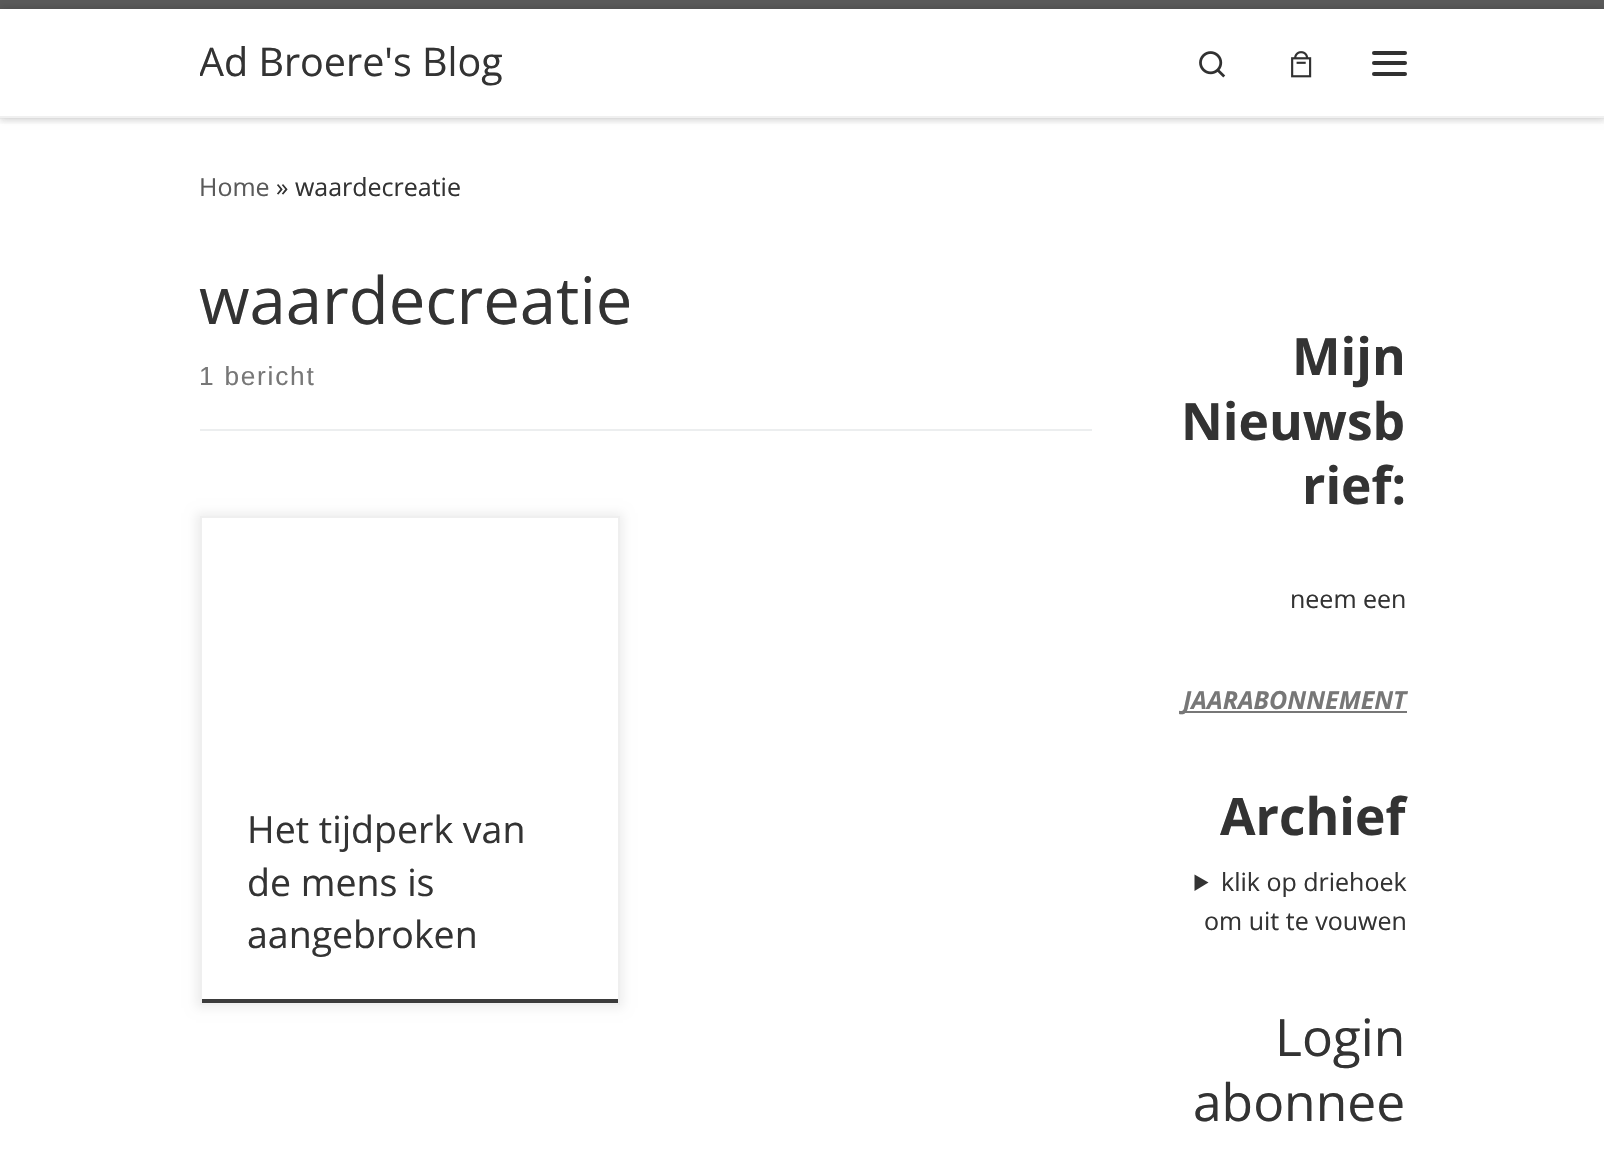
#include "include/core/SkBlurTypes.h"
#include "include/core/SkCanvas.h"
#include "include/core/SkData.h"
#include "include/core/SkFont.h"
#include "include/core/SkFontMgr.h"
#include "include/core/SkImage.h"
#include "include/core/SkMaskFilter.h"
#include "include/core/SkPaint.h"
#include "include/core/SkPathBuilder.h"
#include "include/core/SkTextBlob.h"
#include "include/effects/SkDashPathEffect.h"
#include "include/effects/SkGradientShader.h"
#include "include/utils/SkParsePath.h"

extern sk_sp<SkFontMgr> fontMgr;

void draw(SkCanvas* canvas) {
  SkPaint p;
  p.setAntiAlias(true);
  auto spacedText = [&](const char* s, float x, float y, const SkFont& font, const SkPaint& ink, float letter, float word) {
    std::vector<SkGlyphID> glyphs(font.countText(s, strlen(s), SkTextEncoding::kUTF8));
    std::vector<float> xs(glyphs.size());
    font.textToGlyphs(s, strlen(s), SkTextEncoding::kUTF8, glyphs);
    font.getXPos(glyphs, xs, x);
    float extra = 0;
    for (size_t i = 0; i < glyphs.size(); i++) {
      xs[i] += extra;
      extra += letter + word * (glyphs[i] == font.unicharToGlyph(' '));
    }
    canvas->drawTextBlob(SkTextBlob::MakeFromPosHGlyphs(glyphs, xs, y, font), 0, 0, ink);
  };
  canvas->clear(SK_ColorWHITE);
  canvas->save();
  canvas->clipRect(SkRect::MakeLTRB(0, 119, 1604, 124));
  p.setColor(SkColorSetARGB(20, 102, 102, 102));
  p.setMaskFilter(SkMaskFilter::MakeBlur(kNormal_SkBlurStyle, 2));
  canvas->drawRect(SkRect::MakeLTRB(0, 4, 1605, 123), p);
  p.setMaskFilter(nullptr);
  canvas->restore();
  p.setColor(SkColorSetRGB(90, 90, 90));
  canvas->drawRect(SkRect::MakeLTRB(0, 0, 1604, 9), p);
  p.setColor(SkColorSetRGB(239, 239, 239));
  canvas->drawPath(SkPathBuilder().moveTo(0, 117).lineTo(0, 119).lineTo(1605, 119).lineTo(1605, 11).lineTo(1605, 117).close().detach(), p);
  canvas->save();
  canvas->clipPath(SkPathBuilder(SkPathFillType::kEvenOdd).moveTo(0, 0).lineTo(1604, 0).lineTo(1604, 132).lineTo(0, 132).close().moveTo(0, 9).lineTo(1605, 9).lineTo(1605, 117).lineTo(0, 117).close().detach(), true);
  p.setColor(SkColorSetARGB(51, 0, 0, 0));
  p.setMaskFilter(SkMaskFilter::MakeBlur(kNormal_SkBlurStyle, 4.5f));
  canvas->drawRect(SkRect::MakeLTRB(0, 9, 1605, 117), p);
  p.setMaskFilter(nullptr);
  canvas->restore();
  canvas->drawImageRect(SkImages::DeferredFromEncodedData(SkData::MakeFromFileName("images/1.png")), SkRect::MakeLTRB(1199, 51, 1226, 78), SkSamplingOptions());
  canvas->drawImageRect(SkImages::DeferredFromEncodedData(SkData::MakeFromFileName("images/2.png")), SkRect::MakeLTRB(1291, 51, 1312, 78), SkSamplingOptions());
  p.setColor(SkColorSetRGB(49, 49, 49));
  canvas->drawRoundRect(SkRect::MakeLTRB(1372, 51, 1407, 55), 2, 2, p);
  canvas->drawRoundRect(SkRect::MakeLTRB(1372, 61, 1407, 65), 2, 2, p);
  canvas->drawRoundRect(SkRect::MakeLTRB(1372, 72, 1407, 76), 2, 2, p);
  p.setColor(SkColorSetRGB(240, 240, 240));
  canvas->drawRect(SkRect::MakeLTRB(0, 116, 1604, 118), p);
  p.setColor(SkColorSetRGB(236, 238, 239));
  canvas->drawRect(SkRect::MakeLTRB(200, 429, 1092, 431), p);
  p.setColor(SkColorSetARGB(18, 0, 0, 0));
  p.setMaskFilter(SkMaskFilter::MakeBlur(kNormal_SkBlurStyle, 5));
  canvas->drawRect(SkRect::MakeLTRB(196, 513, 623, 1008), p);
  p.setMaskFilter(nullptr);
  p.setColor(SK_ColorWHITE);
  canvas->drawRect(SkRect::MakeLTRB(202, 518, 618, 999), p);
  p.setColor(SkColorSetRGB(59, 59, 59));
  canvas->drawRect(SkRect::MakeLTRB(200, 999, 620, 1003), p);
  p.setStyle(SkPaint::kStroke_Style);
  p.setStrokeWidth(2);
  p.setColor(SkColorSetRGB(239, 239, 239));
  canvas->drawRect(SkRect::MakeLTRB(201, 517, 619, 1004), p);
  p.setStyle(SkPaint::kFill_Style);
  p.setColor(SkColorSetRGB(119, 119, 119));
  canvas->drawRect(SkRect::MakeLTRB(1183, 711, 1407, 713), p);
  p.setColor(SkColorSetRGB(51, 51, 51));
  canvas->drawPath(SkPathBuilder().moveTo(1194.5f, 874.5f).lineTo(1208.5f, 882.5f).lineTo(1194.5f, 891).close().detach(), p);
  canvas->save();
  canvas->clipRect(SkRect::MakeLTRB(200, 18, 502, 107));
  SkFont font1(fontMgr->matchFamilyStyle("Open Sans", SkFontStyle::Normal()), 39.5f);
  font1.setSubpixel(true);
  canvas->drawString("Ad Broere's Blog", 199, 76, font1, p);
  canvas->restore();
  SkFont font2(fontMgr->matchFamilyStyle("Open Sans", SkFontStyle::Normal()), 25);
  font2.setSubpixel(true);
  p.setColor(SkColorSetRGB(90, 90, 90));
  canvas->drawString("Home", 199, 196, font2, p);
  p.setColor(SkColorSetRGB(51, 51, 51));
  canvas->drawString("» waardecreatie", 276, 196, font2, p);
  SkFont font3(fontMgr->matchFamilyStyle("Open Sans", SkFontStyle::Normal()), 65.25f);
  font3.setSubpixel(true);
  canvas->drawString("waardecreatie", 199, 324, font3, p);
  SkFont font4(fontMgr->matchFamilyStyle("Liberation Sans", SkFontStyle::Normal()), 26.25f);
  font4.setSubpixel(true);
  p.setColor(SkColorSetRGB(119, 119, 119));
  spacedText("1 bericht", 199, 385, font4, p, 1.75f, 0);
  SkFont font5(fontMgr->matchFamilyStyle("Open Sans", SkFontStyle::Normal()), 37.5f);
  font5.setSubpixel(true);
  p.setColor(SkColorSetRGB(51, 51, 51));
  canvas->drawString("Het tijdperk van", 247, 843, font5, p);
  canvas->drawString("de mens is", 247, 896, font5, p);
  canvas->drawString("aangebroken", 247, 948, font5, p);
  SkFont font6(fontMgr->matchFamilyStyle("Open Sans", SkFontStyle::Bold()), 51.5f);
  font6.setSubpixel(true);
  canvas->drawString("Mijn", 1292, 375, font6, p);
  canvas->drawString("Nieuwsb", 1181, 440, font6, p);
  canvas->drawString("rief:", 1302, 504, font6, p);
  canvas->drawString("neem een", 1290, 608, font2, p);
  SkFont font7(fontMgr->matchFamilyStyle("Open Sans", SkFontStyle::BoldItalic()), 25);
  font7.setSubpixel(true);
  p.setColor(SkColorSetRGB(119, 119, 119));
  canvas->drawString("JAARABONNEMENT", 1183, 709, font7, p);
  p.setColor(SkColorSetRGB(51, 51, 51));
  canvas->drawString("Archief", 1220, 835, font6, p);
  canvas->drawString("klik op driehoek", 1221, 891, font2, p);
  canvas->drawString("om uit te vouwen", 1204, 930, font2, p);
  SkFont font8(fontMgr->matchFamilyStyle("Open Sans", SkFontStyle::Normal()), 51.5f);
  font8.setSubpixel(true);
  canvas->drawString("Login", 1275, 1056, font8, p);
  canvas->drawString("abonnee", 1193, 1121, font8, p);
}
